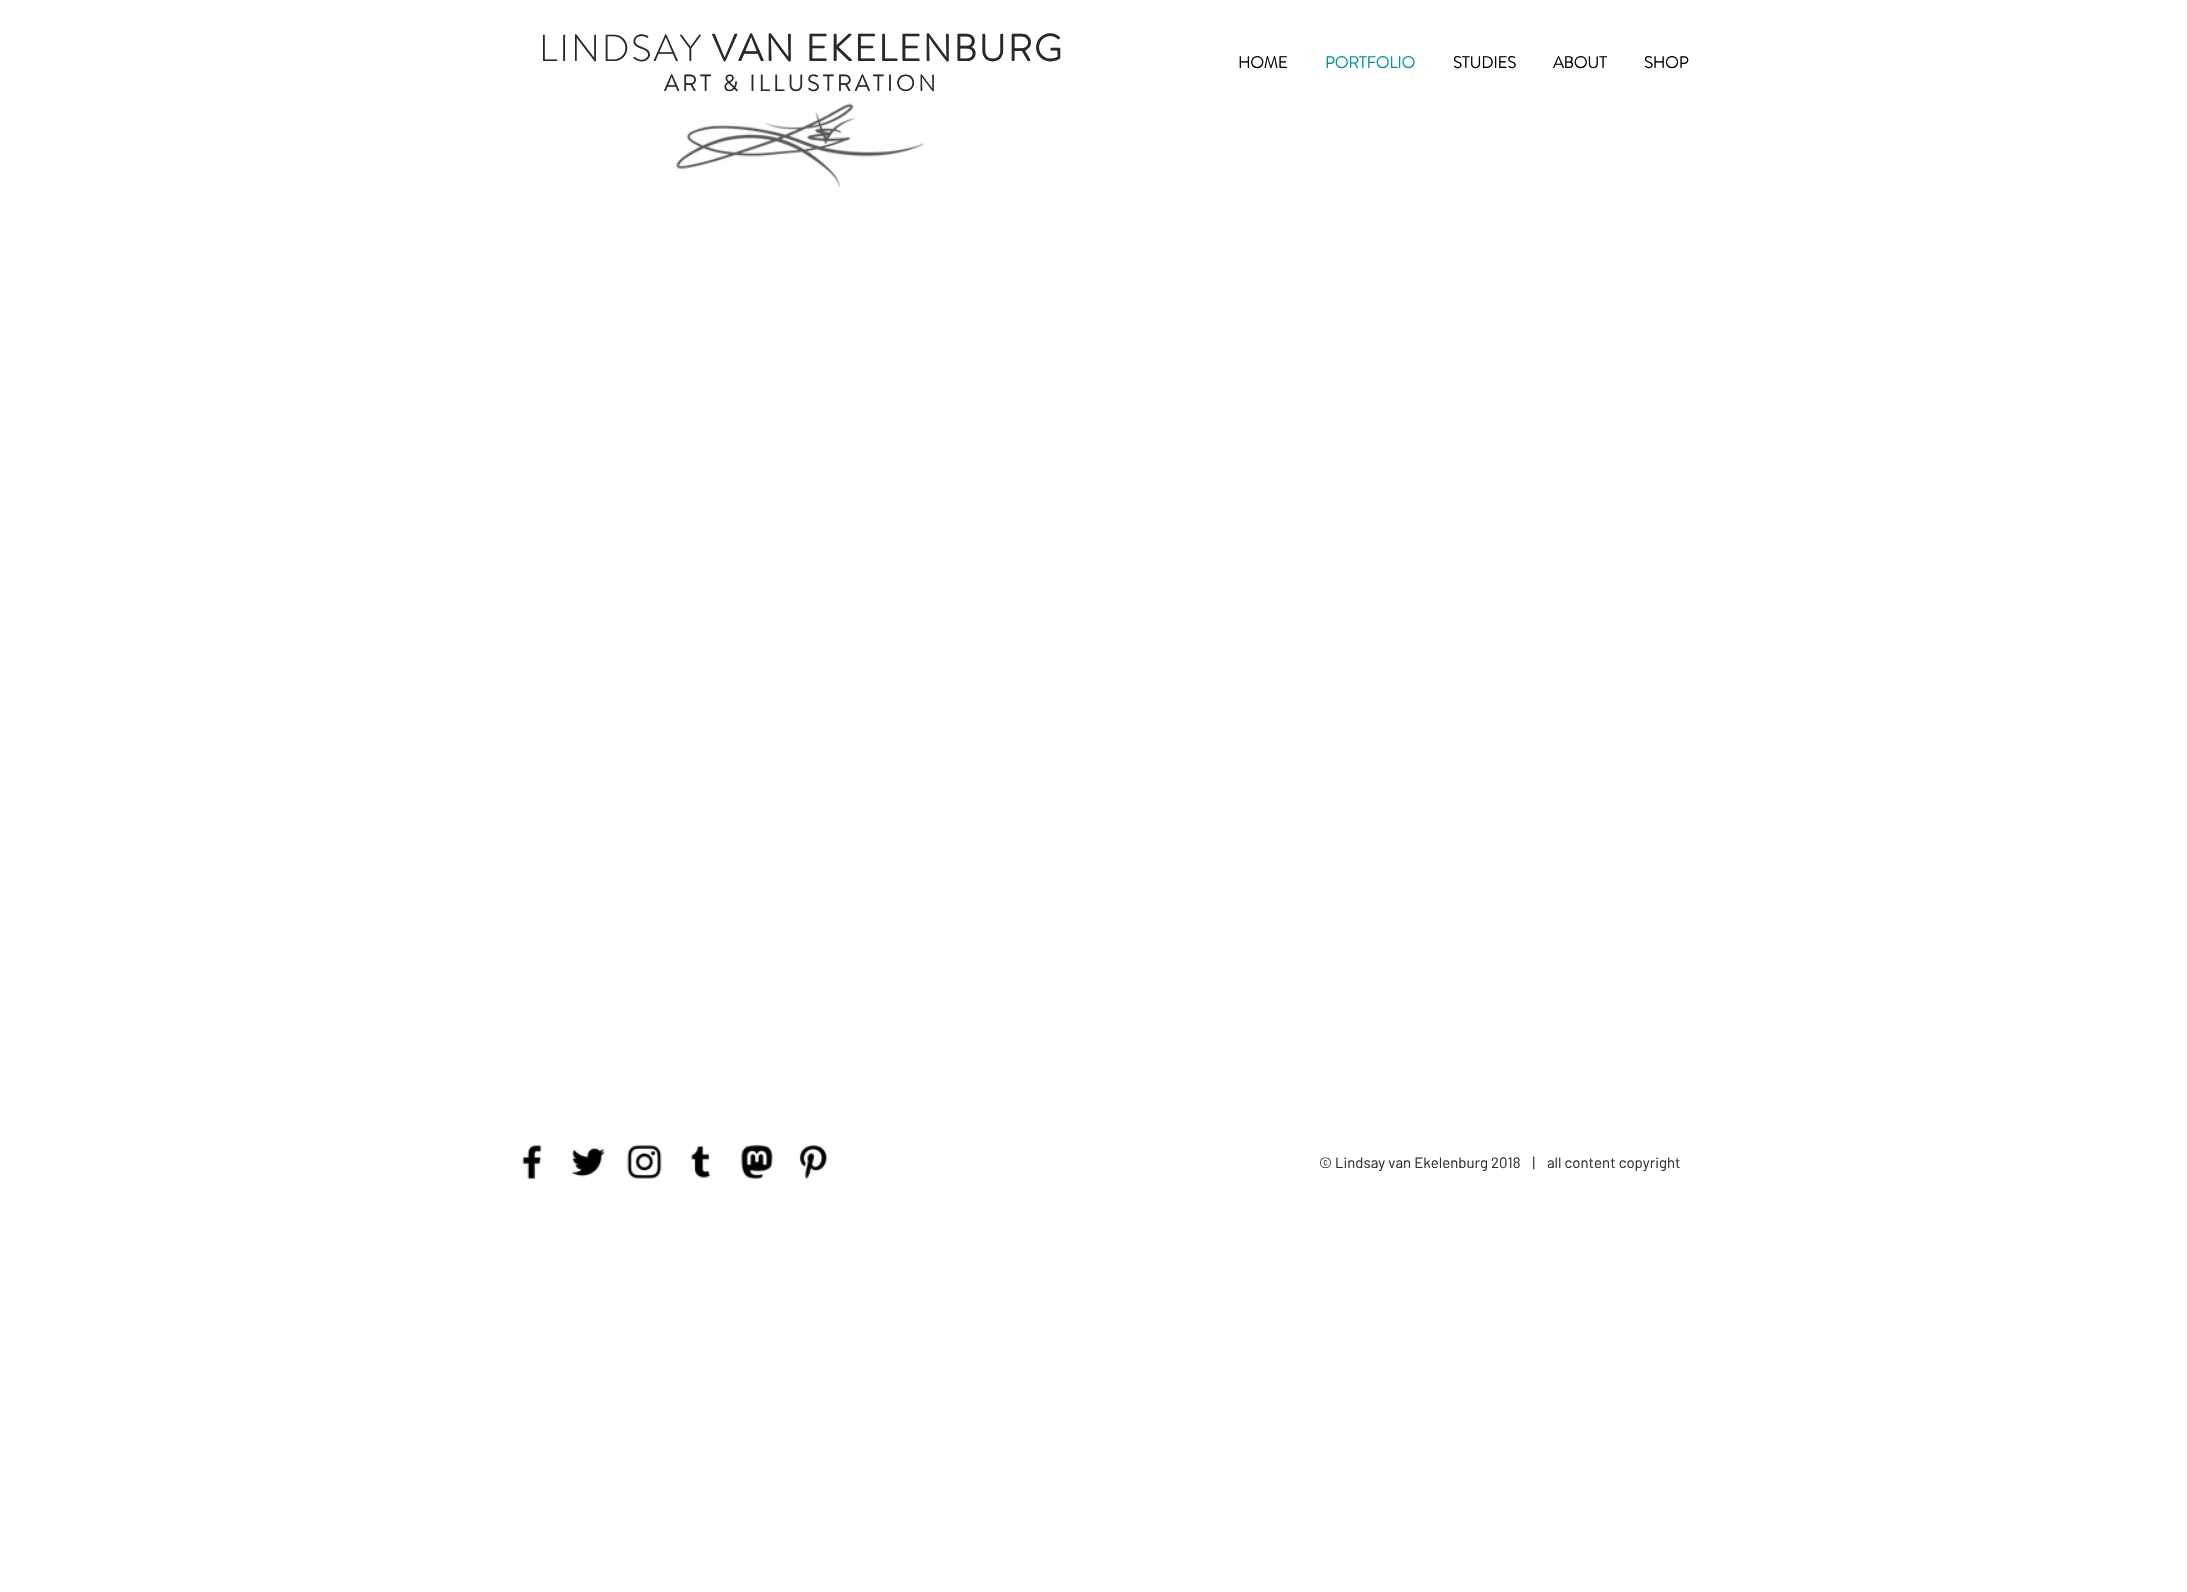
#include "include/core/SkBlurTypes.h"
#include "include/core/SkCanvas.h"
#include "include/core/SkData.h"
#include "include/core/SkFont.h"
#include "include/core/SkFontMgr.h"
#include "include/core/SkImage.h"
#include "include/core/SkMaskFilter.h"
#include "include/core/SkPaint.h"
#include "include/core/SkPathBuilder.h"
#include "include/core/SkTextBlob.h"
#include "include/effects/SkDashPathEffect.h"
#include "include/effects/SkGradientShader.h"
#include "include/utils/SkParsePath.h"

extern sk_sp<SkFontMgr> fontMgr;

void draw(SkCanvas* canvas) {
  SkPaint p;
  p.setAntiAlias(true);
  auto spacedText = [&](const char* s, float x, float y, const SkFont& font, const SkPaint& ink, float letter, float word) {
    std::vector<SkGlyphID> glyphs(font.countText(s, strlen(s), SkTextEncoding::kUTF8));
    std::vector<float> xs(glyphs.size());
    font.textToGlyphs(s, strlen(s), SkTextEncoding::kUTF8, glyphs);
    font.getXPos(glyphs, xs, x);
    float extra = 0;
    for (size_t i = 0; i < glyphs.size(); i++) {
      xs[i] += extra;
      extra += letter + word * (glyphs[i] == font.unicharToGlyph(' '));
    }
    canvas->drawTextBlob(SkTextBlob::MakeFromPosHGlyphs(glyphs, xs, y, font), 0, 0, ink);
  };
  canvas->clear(SK_ColorWHITE);
  canvas->drawImageRect(SkImages::DeferredFromEncodedData(SkData::MakeFromFileName("images/1.png")), SkRect::MakeLTRB(676, 103, 925, 188), SkSamplingOptions());
  canvas->drawImageRect(SkImages::DeferredFromEncodedData(SkData::MakeFromFileName("images/2.png")), SkRect::MakeLTRB(522, 1144, 542, 1179), SkSamplingOptions());
  canvas->drawImageRect(SkImages::DeferredFromEncodedData(SkData::MakeFromFileName("images/3.png")), SkRect::MakeLTRB(571, 1147, 605, 1177), SkSamplingOptions());
  canvas->drawImageRect(SkImages::DeferredFromEncodedData(SkData::MakeFromFileName("images/4.png")), SkRect::MakeLTRB(627, 1144, 662, 1179), SkSamplingOptions());
  canvas->drawImageRect(SkImages::DeferredFromEncodedData(SkData::MakeFromFileName("images/5.png")), SkRect::MakeLTRB(691, 1146, 711, 1178), SkSamplingOptions());
  canvas->drawImageRect(SkImages::DeferredFromEncodedData(SkData::MakeFromFileName("images/6.png")), SkRect::MakeLTRB(741, 1144, 773, 1179), SkSamplingOptions());
  canvas->drawImageRect(SkImages::DeferredFromEncodedData(SkData::MakeFromFileName("images/7.png")), SkRect::MakeLTRB(799, 1144, 828, 1179), SkSamplingOptions());
  SkFont font1(fontMgr->matchFamilyStyle("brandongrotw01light", SkFontStyle(300, SkFontStyle::kNormal_Width, SkFontStyle::kUpright_Slant)), 37.5f);
  font1.setSubpixel(true);
  p.setColor(SkColorSetRGB(41, 41, 41));
  spacedText("LINDSAY", 539, 61, font1, p, 1.9f, 0);
  SkFont font2(fontMgr->matchFamilyStyle("brandongrotw01light", SkFontStyle::Bold()), 37.5f);
  font2.setSubpixel(true);
  spacedText("VAN EKELENBURG", 712, 61, font2, p, 1.9f, 0);
  SkFont font3(fontMgr->matchFamilyStyle("brandongrotw01light", SkFontStyle::Bold()), 22.5f);
  font3.setSubpixel(true);
  spacedText("ART & ILLUSTRATION", 664, 91, font3, p, 3.4f, 0);
  SkFont font4(fontMgr->matchFamilyStyle("brandongrotw01light", SkFontStyle::Bold()), 16.25f);
  font4.setSubpixel(true);
  p.setColor(SK_ColorBLACK);
  canvas->drawString("HOME", 1238, 68, font4, p);
  p.setColor(SkColorSetRGB(0, 147, 153));
  canvas->drawString("PORTFOLIO", 1325, 68, font4, p);
  p.setColor(SK_ColorBLACK);
  canvas->drawString("STUDIES", 1453, 68, font4, p);
  canvas->drawString("ABOUT", 1553, 68, font4, p);
  canvas->drawString("SHOP", 1644, 68, font4, p);
  SkFont font5(fontMgr->matchFamilyStyle("Barlow", SkFontStyle::Normal()), 15);
  font5.setSubpixel(true);
  p.setColor(SkColorSetRGB(47, 46, 46));
  canvas->drawString("© Lindsay van Ekelenburg 2018    |    all content copyright", 1319, 1168, font5, p);
}
